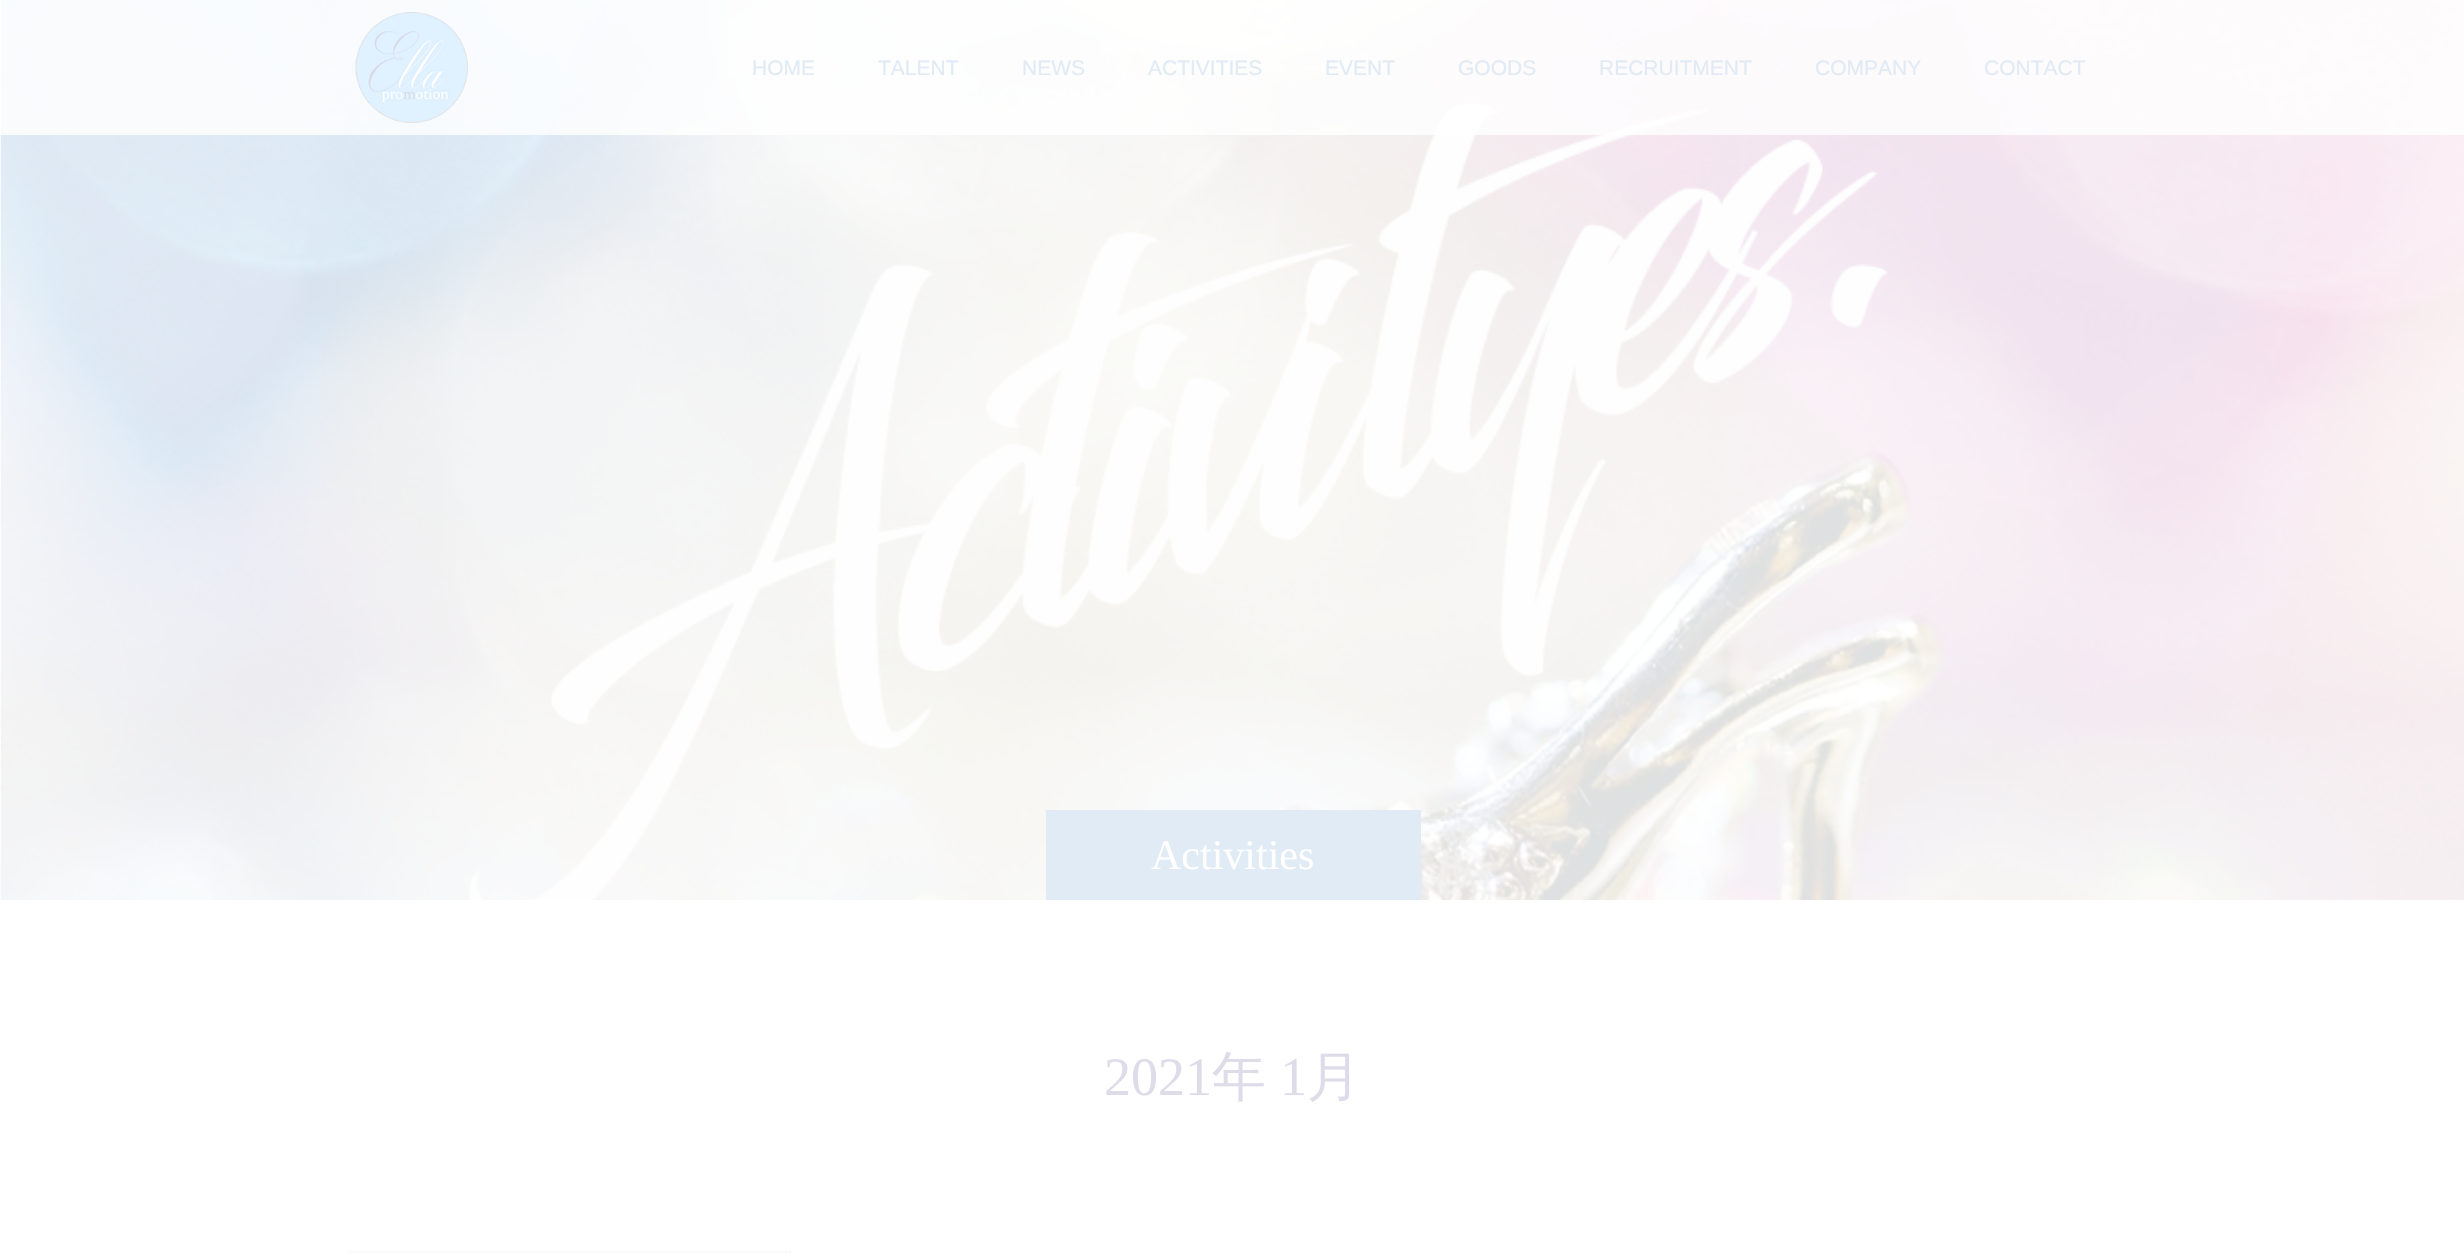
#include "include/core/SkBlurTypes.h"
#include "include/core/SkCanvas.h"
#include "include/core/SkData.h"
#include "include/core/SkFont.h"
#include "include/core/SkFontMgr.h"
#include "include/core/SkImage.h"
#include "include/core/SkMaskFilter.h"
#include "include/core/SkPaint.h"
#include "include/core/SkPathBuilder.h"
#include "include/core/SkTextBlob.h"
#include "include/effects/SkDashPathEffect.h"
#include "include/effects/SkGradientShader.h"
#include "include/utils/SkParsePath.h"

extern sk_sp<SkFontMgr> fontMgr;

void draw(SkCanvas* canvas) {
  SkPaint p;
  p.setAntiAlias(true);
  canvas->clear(SK_ColorWHITE);
  canvas->drawImageRect(SkImages::DeferredFromEncodedData(SkData::MakeFromFileName("images/2.png")), SkRect::MakeLTRB(0, 0, 2464, 900), SkSamplingOptions());
  p.setColor(SkColorSetARGB(204, 255, 255, 255));
  canvas->drawRect(SkRect::MakeLTRB(0, 0, 2464, 135), p);
  canvas->drawImageRect(SkImages::DeferredFromEncodedData(SkData::MakeFromFileName("images/1.png")), SkRect::MakeLTRB(355, 12, 468, 123), SkSamplingOptions());
  p.setColor(SkColorSetRGB(224, 235, 245));
  canvas->drawRect(SkRect::MakeLTRB(1046, 810, 1421, 900), p);
  p.setStyle(SkPaint::kStroke_Style);
  p.setStrokeWidth(2);
  p.setColor(SkColorSetRGB(250, 250, 250));
  canvas->drawRect(SkRect::MakeLTRB(349, 1252, 790, 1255), p);
  SkFont font1(fontMgr->matchFamilyStyle("Liberation Sans", SkFontStyle::Normal()), 21);
  font1.setSubpixel(true);
  p.setStyle(SkPaint::kFill_Style);
  p.setColor(SkColorSetRGB(224, 235, 245));
  canvas->drawString("HOME", 752, 75, font1, p);
  canvas->drawString("TALENT", 878, 75, font1, p);
  canvas->drawString("NEWS", 1022, 75, font1, p);
  canvas->drawString("ACTIVITIES", 1148, 75, font1, p);
  canvas->drawString("EVENT", 1325, 75, font1, p);
  canvas->drawString("GOODS", 1458, 75, font1, p);
  canvas->drawString("RECRUITMENT", 1599, 75, font1, p);
  canvas->drawString("COMPANY", 1815, 75, font1, p);
  canvas->drawString("CONTACT", 1984, 75, font1, p);
  SkFont font2(fontMgr->matchFamilyStyle("Liberation Serif", SkFontStyle::Normal()), 42);
  font2.setSubpixel(true);
  p.setColor(SK_ColorWHITE);
  canvas->drawString("Activities", 1151, 869, font2, p);
  SkFont font3(fontMgr->matchFamilyStyle("Liberation Serif", SkFontStyle::Normal()), 54);
  font3.setSubpixel(true);
  p.setColor(SkColorSetRGB(223, 220, 234));
  canvas->drawString("2021", 1104, 1095, font3, p);
  SkFont font4(fontMgr->matchFamilyStyle("WenQuanYi Zen Hei", SkFontStyle(500, SkFontStyle::kNormal_Width, SkFontStyle::kUpright_Slant)), 54);
  font4.setSubpixel(true);
  canvas->drawString("年", 1212, 1095, font4, p);
  canvas->drawString("1", 1280, 1095, font3, p);
  canvas->drawString("月", 1307, 1095, font4, p);
}
